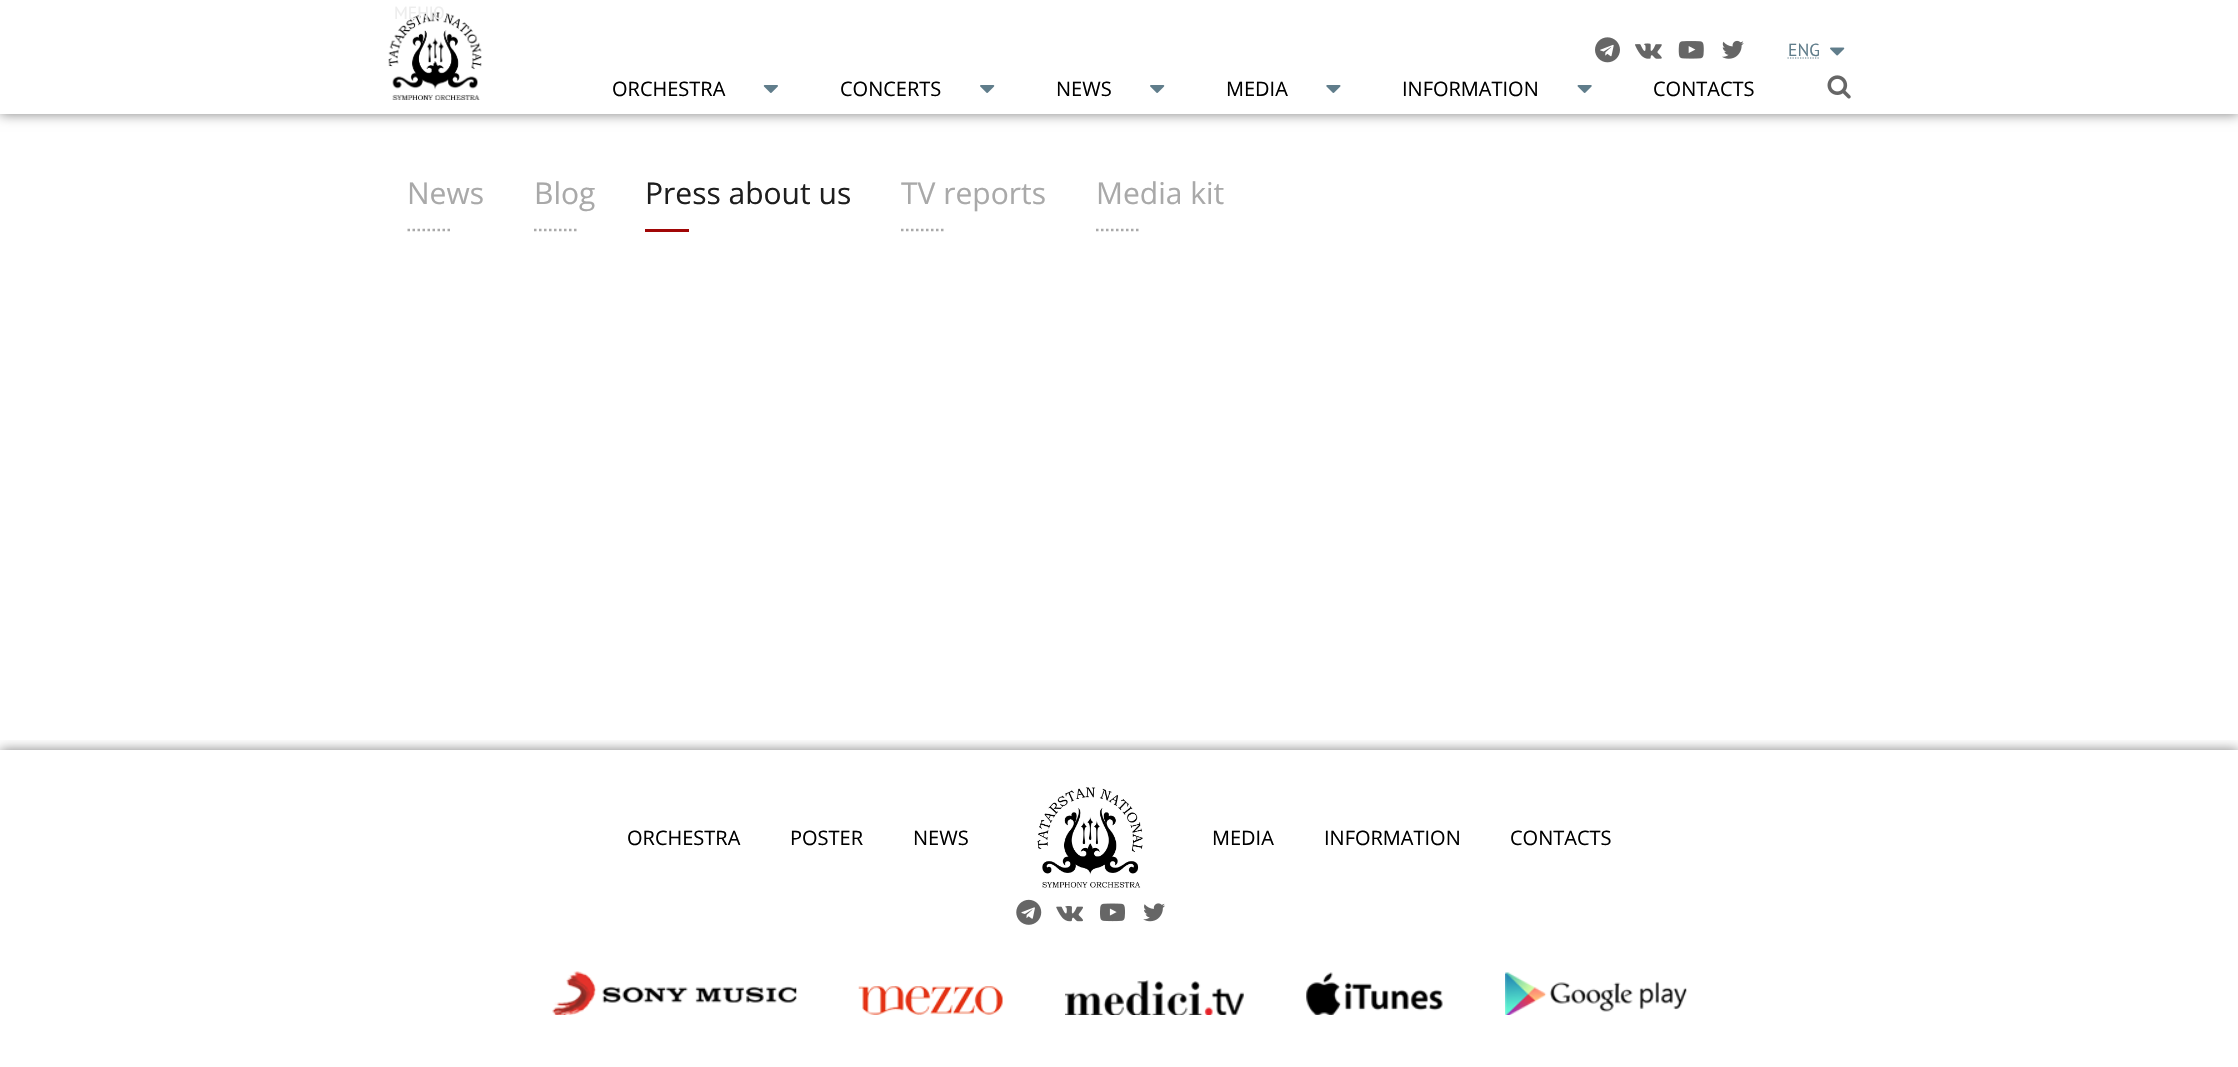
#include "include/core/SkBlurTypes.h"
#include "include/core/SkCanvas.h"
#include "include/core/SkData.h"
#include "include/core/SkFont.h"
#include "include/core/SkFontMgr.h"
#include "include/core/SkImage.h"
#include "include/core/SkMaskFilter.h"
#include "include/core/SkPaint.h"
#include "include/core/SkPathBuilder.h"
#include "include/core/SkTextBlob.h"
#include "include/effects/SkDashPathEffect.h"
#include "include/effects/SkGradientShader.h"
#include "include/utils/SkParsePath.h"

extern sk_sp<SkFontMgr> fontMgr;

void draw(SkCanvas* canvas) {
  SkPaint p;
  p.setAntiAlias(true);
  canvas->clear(SK_ColorWHITE);
  p.setColor(SkColorSetARGB(128, 0, 0, 0));
  p.setMaskFilter(SkMaskFilter::MakeBlur(kNormal_SkBlurStyle, 6));
  canvas->drawRect(SkRect::MakeLTRB(0, 0, 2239, 114), p);
  p.setMaskFilter(nullptr);
  p.setColor(SK_ColorWHITE);
  canvas->drawRect(SkRect::MakeLTRB(0, 0, 2238, 114), p);
  canvas->drawImageRect(SkImages::DeferredFromEncodedData(SkData::MakeFromFileName("images/1.png")), SkRect::MakeLTRB(388, 12, 482, 100), SkSamplingOptions());
  canvas->drawImageRect(SkImages::DeferredFromEncodedData(SkData::MakeFromFileName("images/2.png")), SkRect::MakeLTRB(1595, 37, 1620, 63), SkSamplingOptions());
  canvas->drawImageRect(SkImages::DeferredFromEncodedData(SkData::MakeFromFileName("images/3.png")), SkRect::MakeLTRB(1635, 43, 1662, 59), SkSamplingOptions());
  canvas->drawImageRect(SkImages::DeferredFromEncodedData(SkData::MakeFromFileName("images/4.png")), SkRect::MakeLTRB(1678, 41, 1704, 59), SkSamplingOptions());
  canvas->drawImageRect(SkImages::DeferredFromEncodedData(SkData::MakeFromFileName("images/5.png")), SkRect::MakeLTRB(1722, 40, 1744, 59), SkSamplingOptions());
  p.setStyle(SkPaint::kStroke_Style);
  p.setStrokeWidth(1.2f);
  p.setColor(SkColorSetRGB(96, 125, 139));
  p.setPathEffect(SkDashPathEffect::Make({{1.25f, 1.25f}}, 0));
  canvas->drawPath(SkPathBuilder().moveTo(1787.5f, 58).lineTo(1819.5f, 58).detach(), p);
  p.setPathEffect(nullptr);
  canvas->drawImageRect(SkImages::DeferredFromEncodedData(SkData::MakeFromFileName("images/6.png")), SkRect::MakeLTRB(1830, 47, 1845, 56), SkSamplingOptions());
  canvas->drawImageRect(SkImages::DeferredFromEncodedData(SkData::MakeFromFileName("images/7.png")), SkRect::MakeLTRB(763, 85, 778, 93), SkSamplingOptions());
  canvas->drawImageRect(SkImages::DeferredFromEncodedData(SkData::MakeFromFileName("images/8.png")), SkRect::MakeLTRB(980, 85, 995, 93), SkSamplingOptions());
  canvas->drawImageRect(SkImages::DeferredFromEncodedData(SkData::MakeFromFileName("images/8.png")), SkRect::MakeLTRB(1150, 85, 1165, 93), SkSamplingOptions());
  canvas->drawImageRect(SkImages::DeferredFromEncodedData(SkData::MakeFromFileName("images/9.png")), SkRect::MakeLTRB(1326, 85, 1341, 93), SkSamplingOptions());
  canvas->drawImageRect(SkImages::DeferredFromEncodedData(SkData::MakeFromFileName("images/10.png")), SkRect::MakeLTRB(1577, 85, 1592, 93), SkSamplingOptions());
  canvas->drawImageRect(SkImages::DeferredFromEncodedData(SkData::MakeFromFileName("images/11.png")), SkRect::MakeLTRB(1827, 75, 1851, 99), SkSamplingOptions());
  p.setStrokeWidth(2.5f);
  p.setColor(SkColorSetRGB(169, 169, 169));
  p.setPathEffect(SkDashPathEffect::Make({{2.5f, 2.5f}}, 0));
  canvas->drawPath(SkPathBuilder().moveTo(407.5f, 230).lineTo(451, 230).detach(), p);
  p.setPathEffect(nullptr);
  p.setPathEffect(SkDashPathEffect::Make({{2.5f, 2.5f}}, 0));
  canvas->drawPath(SkPathBuilder().moveTo(534, 230).lineTo(577.5f, 230).detach(), p);
  p.setPathEffect(nullptr);
  p.setStyle(SkPaint::kFill_Style);
  p.setColor(SkColorSetRGB(161, 6, 6));
  canvas->drawRect(SkRect::MakeLTRB(645, 229, 689, 232), p);
  p.setStyle(SkPaint::kStroke_Style);
  p.setColor(SkColorSetRGB(169, 169, 169));
  p.setPathEffect(SkDashPathEffect::Make({{2.5f, 2.5f}}, 0));
  canvas->drawPath(SkPathBuilder().moveTo(901, 230).lineTo(945, 230).detach(), p);
  p.setPathEffect(nullptr);
  p.setPathEffect(SkDashPathEffect::Make({{2.5f, 2.5f}}, 0));
  canvas->drawPath(SkPathBuilder().moveTo(1096, 230).lineTo(1140, 230).detach(), p);
  p.setPathEffect(nullptr);
  canvas->save();
  canvas->clipRect(SkRect::MakeLTRB(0, 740, 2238, 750));
  p.setStyle(SkPaint::kFill_Style);
  p.setColor(SkColorSetARGB(128, 0, 0, 0));
  p.setMaskFilter(SkMaskFilter::MakeBlur(kNormal_SkBlurStyle, 6));
  canvas->drawRect(SkRect::MakeLTRB(0, 750, 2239, 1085), p);
  p.setMaskFilter(nullptr);
  canvas->restore();
  canvas->drawImageRect(SkImages::DeferredFromEncodedData(SkData::MakeFromFileName("images/12.png")), SkRect::MakeLTRB(1037, 787, 1143, 888), SkSamplingOptions());
  canvas->drawImageRect(SkImages::DeferredFromEncodedData(SkData::MakeFromFileName("images/13.png")), SkRect::MakeLTRB(1016, 899, 1042, 925), SkSamplingOptions());
  canvas->drawImageRect(SkImages::DeferredFromEncodedData(SkData::MakeFromFileName("images/14.png")), SkRect::MakeLTRB(1056, 906, 1083, 922), SkSamplingOptions());
  canvas->drawImageRect(SkImages::DeferredFromEncodedData(SkData::MakeFromFileName("images/15.png")), SkRect::MakeLTRB(1100, 903, 1125, 922), SkSamplingOptions());
  canvas->drawImageRect(SkImages::DeferredFromEncodedData(SkData::MakeFromFileName("images/16.png")), SkRect::MakeLTRB(1143, 903, 1165, 922), SkSamplingOptions());
  canvas->drawImageRect(SkImages::DeferredFromEncodedData(SkData::MakeFromFileName("images/17.png")), SkRect::MakeLTRB(552, 971, 797, 1015), SkSamplingOptions());
  canvas->drawImageRect(SkImages::DeferredFromEncodedData(SkData::MakeFromFileName("images/18.png")), SkRect::MakeLTRB(858, 986, 1003, 1015), SkSamplingOptions());
  canvas->drawImageRect(SkImages::DeferredFromEncodedData(SkData::MakeFromFileName("images/19.png")), SkRect::MakeLTRB(1065, 980, 1244, 1015), SkSamplingOptions());
  canvas->drawImageRect(SkImages::DeferredFromEncodedData(SkData::MakeFromFileName("images/20.png")), SkRect::MakeLTRB(1306, 972, 1443, 1015), SkSamplingOptions());
  canvas->drawImageRect(SkImages::DeferredFromEncodedData(SkData::MakeFromFileName("images/21.png")), SkRect::MakeLTRB(1505, 972, 1687, 1015), SkSamplingOptions());
  SkFont font1(fontMgr->matchFamilyStyle("PT Sans", SkFontStyle::Normal()), 17.5f);
  font1.setSubpixel(true);
  p.setColor(SkColorSetRGB(237, 237, 237));
  canvas->drawString("МЕНЮ", 394, 19, font1, p);
  p.setColor(SkColorSetRGB(96, 125, 139));
  canvas->drawString("ENG", 1788, 56, font1, p);
  SkFont font2(fontMgr->matchFamilyStyle("Open Sans", SkFontStyle::Normal()), 20);
  font2.setSubpixel(true);
  p.setColor(SK_ColorBLACK);
  canvas->drawString("ORCHESTRA", 612, 96, font2, p);
  canvas->drawString("CONCERTS", 840, 96, font2, p);
  canvas->drawString("NEWS", 1056, 96, font2, p);
  canvas->drawString("MEDIA", 1226, 96, font2, p);
  canvas->drawString("INFORMATION", 1402, 96, font2, p);
  canvas->drawString("CONTACTS", 1653, 96, font2, p);
  SkFont font3(fontMgr->matchFamilyStyle("Open Sans", SkFontStyle::Normal()), 30);
  font3.setSubpixel(true);
  p.setColor(SkColorSetRGB(169, 169, 169));
  canvas->drawString("News", 407, 204, font3, p);
  canvas->drawString("Blog", 534, 204, font3, p);
  p.setColor(SkColorSetRGB(30, 30, 30));
  canvas->drawString("Press about us", 645, 204, font3, p);
  p.setColor(SkColorSetRGB(169, 169, 169));
  canvas->drawString("TV reports", 901, 204, font3, p);
  canvas->drawString("Media kit", 1096, 204, font3, p);
  p.setColor(SK_ColorBLACK);
  canvas->drawString("ORCHESTRA", 627, 845, font2, p);
  canvas->drawString("POSTER", 790, 845, font2, p);
  canvas->drawString("NEWS", 913, 845, font2, p);
  canvas->drawString("MEDIA", 1212, 845, font2, p);
  canvas->drawString("INFORMATION", 1324, 845, font2, p);
  canvas->drawString("CONTACTS", 1510, 845, font2, p);
}
